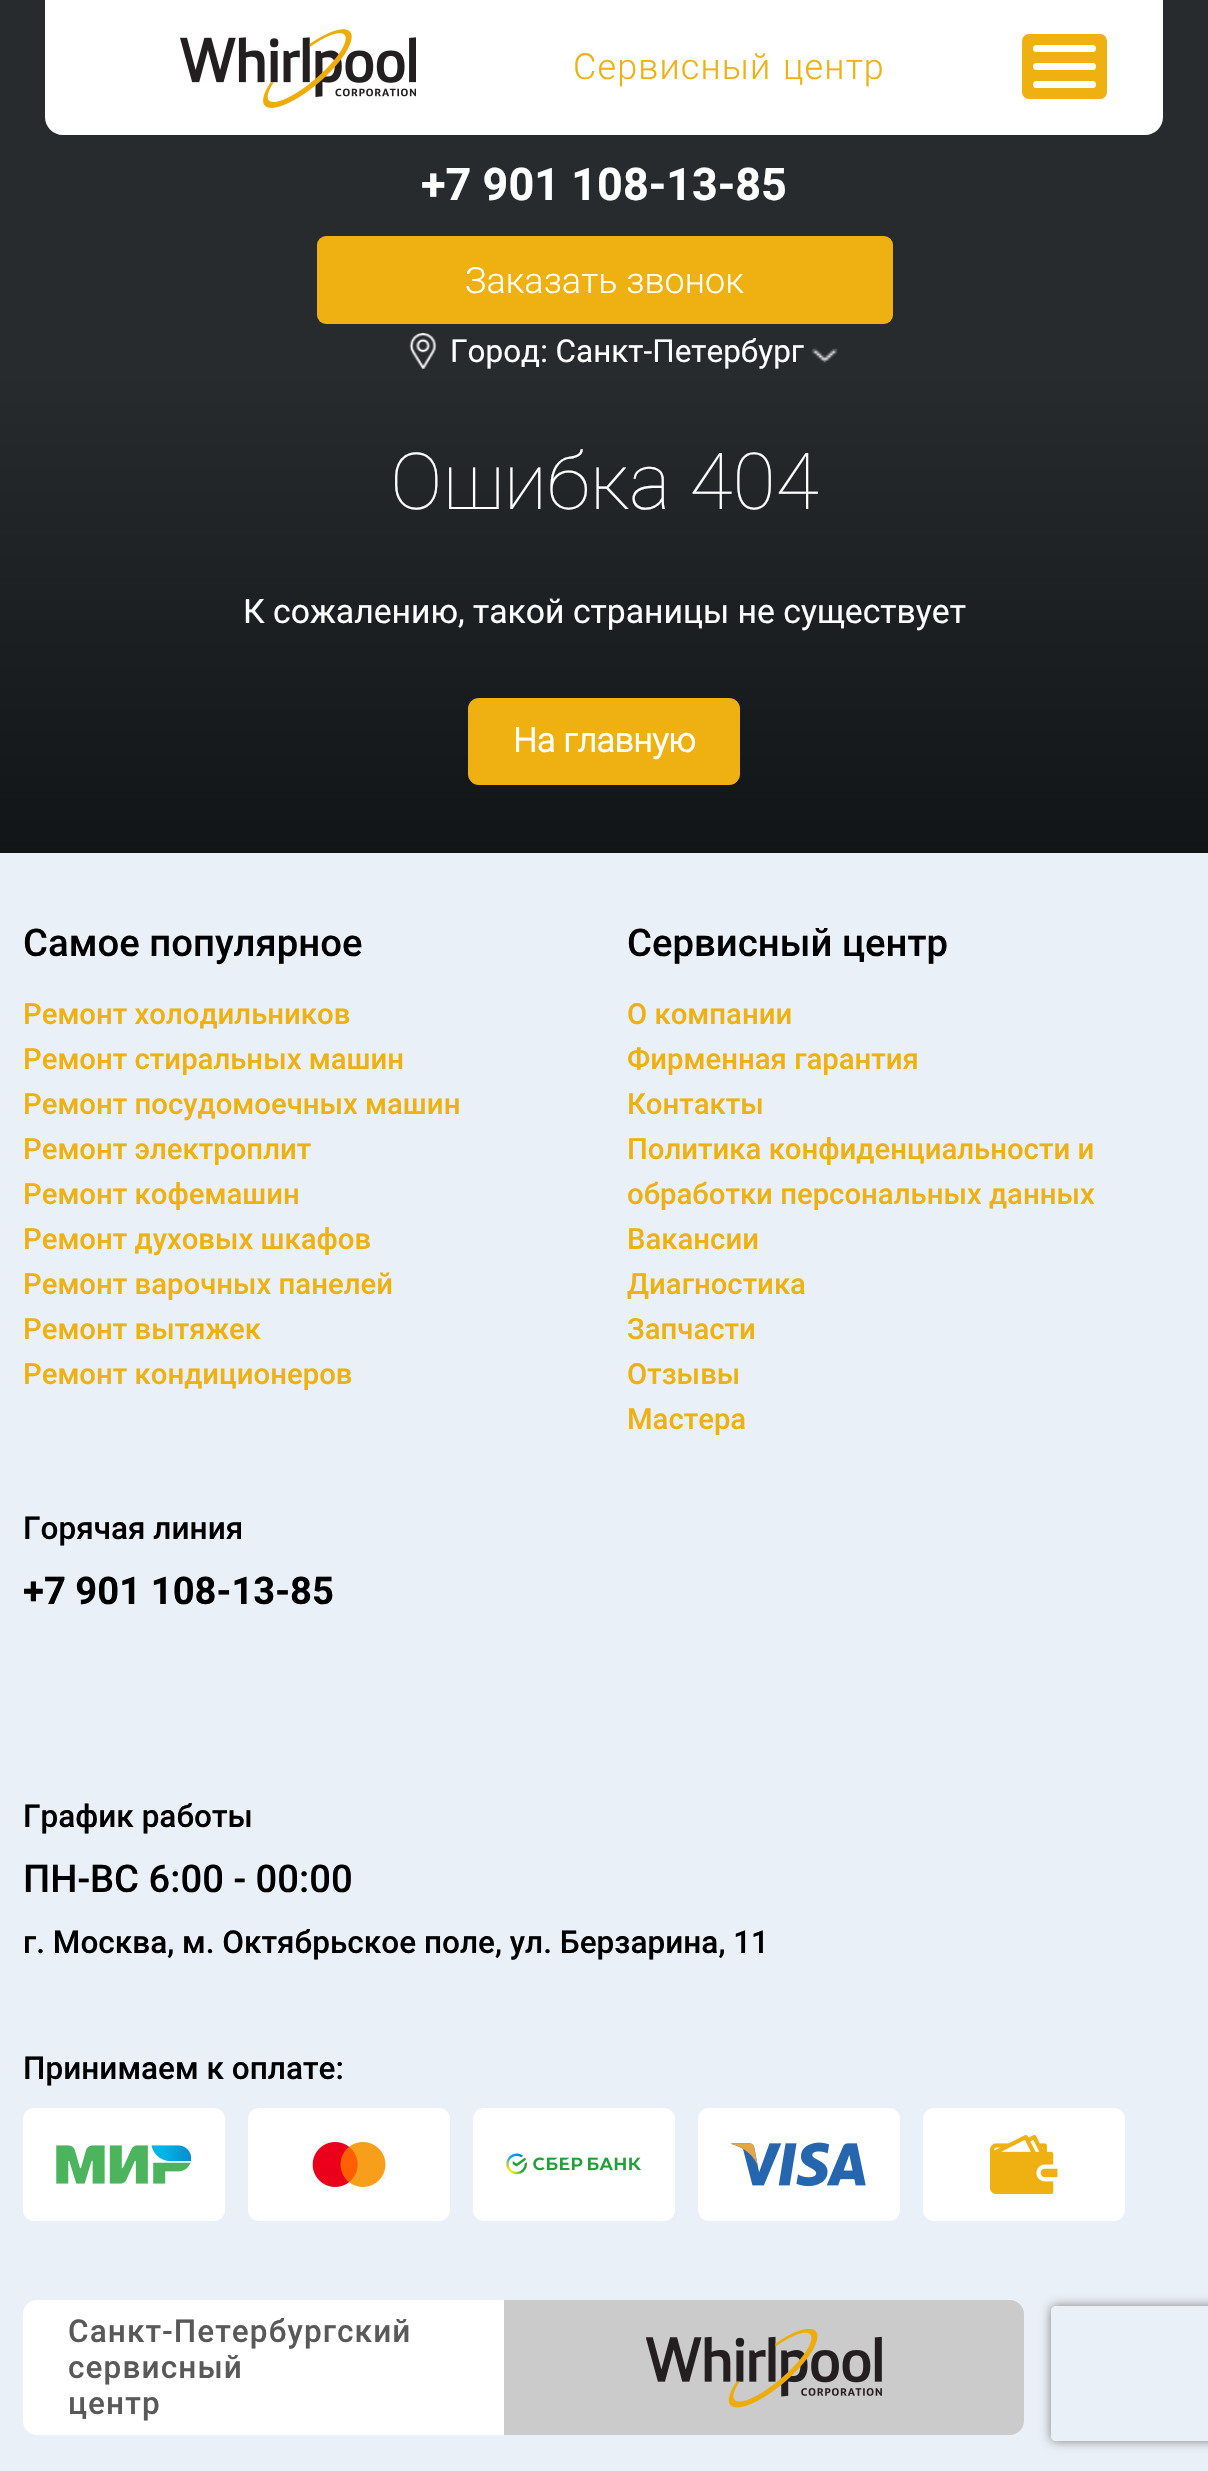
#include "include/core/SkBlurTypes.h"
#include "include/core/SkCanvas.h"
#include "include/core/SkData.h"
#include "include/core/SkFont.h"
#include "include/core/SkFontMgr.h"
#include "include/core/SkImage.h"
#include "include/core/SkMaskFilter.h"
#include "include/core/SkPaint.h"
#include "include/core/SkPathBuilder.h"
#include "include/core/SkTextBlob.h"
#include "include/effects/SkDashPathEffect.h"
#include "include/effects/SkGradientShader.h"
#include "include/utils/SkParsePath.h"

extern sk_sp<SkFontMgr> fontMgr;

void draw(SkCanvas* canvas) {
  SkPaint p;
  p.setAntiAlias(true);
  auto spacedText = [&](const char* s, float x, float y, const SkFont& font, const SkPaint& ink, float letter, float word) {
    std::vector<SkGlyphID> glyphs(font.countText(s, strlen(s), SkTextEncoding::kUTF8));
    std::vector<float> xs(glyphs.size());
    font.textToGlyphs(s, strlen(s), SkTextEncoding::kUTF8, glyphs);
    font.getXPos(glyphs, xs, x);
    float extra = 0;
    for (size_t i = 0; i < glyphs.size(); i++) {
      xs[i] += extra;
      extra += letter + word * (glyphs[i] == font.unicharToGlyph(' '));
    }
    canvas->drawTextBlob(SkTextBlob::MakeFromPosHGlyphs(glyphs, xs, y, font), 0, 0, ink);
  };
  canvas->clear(SK_ColorWHITE);
  p.setColor(SkColorSetRGB(40, 43, 46));
  canvas->drawRect(SkRect::MakeLTRB(0, 0, 1208, 369), p);
  p.setColor(SK_ColorWHITE);
  canvas->drawPath(SkPathBuilder().moveTo(45, 0).lineTo(1163, 0).lineTo(1163, 117).cubicTo(1163, 127, 1155, 135, 1145, 135).lineTo(63, 135).cubicTo(53, 135, 45, 127, 45, 117).close().detach(), p);
  canvas->drawImageRect(SkImages::DeferredFromEncodedData(SkData::MakeFromFileName("images/1.png")), SkRect::MakeLTRB(180, 29, 416, 108), SkSamplingOptions());
  p.setColor(SkColorSetRGB(238, 177, 17));
  canvas->drawRoundRect(SkRect::MakeLTRB(1022, 34, 1107, 99), 7, 7, p);
  p.setColor(SK_ColorWHITE);
  canvas->drawRoundRect(SkRect::MakeLTRB(1033, 45, 1096, 52), 3.5f, 3.5f, p);
  canvas->drawRoundRect(SkRect::MakeLTRB(1033, 63, 1096, 70), 3.5f, 3.5f, p);
  canvas->drawRoundRect(SkRect::MakeLTRB(1033, 81, 1096, 88), 3.5f, 3.5f, p);
  p.setColor(SkColorSetRGB(238, 177, 17));
  canvas->drawRoundRect(SkRect::MakeLTRB(317, 236, 893, 324), 9, 9, p);
  canvas->drawImageRect(SkImages::DeferredFromEncodedData(SkData::MakeFromFileName("images/2.png")), SkRect::MakeLTRB(409, 333, 437, 369), SkSamplingOptions());
  canvas->drawImageRect(SkImages::DeferredFromEncodedData(SkData::MakeFromFileName("images/3.png")), SkRect::MakeLTRB(811, 348, 838, 363), SkSamplingOptions());
  {
    const SkColor colors[] = {SkColorSetRGB(40, 43, 46), SkColorSetRGB(18, 21, 24)};
    const float stops[] = {0, 1};
    const SkPoint ends[] = {{604, 369}, {604, 853}};
    p.setShader(SkGradientShader::MakeLinear(ends, colors, stops, 2, SkTileMode::kClamp));
    p.setAlpha(255);
  }
  canvas->drawRect(SkRect::MakeLTRB(0, 369, 1208, 853), p);
  p.setShader(nullptr);
  p.setColor(SkColorSetRGB(238, 177, 17));
  canvas->drawRoundRect(SkRect::MakeLTRB(468, 698, 740, 785), 11, 11, p);
  p.setColor(SkColorSetRGB(233, 240, 247));
  canvas->drawRect(SkRect::MakeLTRB(0, 853, 1208, 2471), p);
  p.setColor(SK_ColorWHITE);
  canvas->drawRoundRect(SkRect::MakeLTRB(23, 2108, 225, 2221), 11, 11, p);
  canvas->drawImageRect(SkImages::DeferredFromEncodedData(SkData::MakeFromFileName("images/4.png")), SkRect::MakeLTRB(56, 2145, 191, 2184), SkSamplingOptions());
  canvas->drawRoundRect(SkRect::MakeLTRB(248, 2108, 450, 2221), 11, 11, p);
  canvas->drawImageRect(SkImages::DeferredFromEncodedData(SkData::MakeFromFileName("images/5.png")), SkRect::MakeLTRB(312, 2142, 386, 2187), SkSamplingOptions());
  canvas->drawRoundRect(SkRect::MakeLTRB(473, 2108, 675, 2221), 11, 11, p);
  canvas->drawImageRect(SkImages::DeferredFromEncodedData(SkData::MakeFromFileName("images/6.png")), SkRect::MakeLTRB(506, 2153, 641, 2175), SkSamplingOptions());
  canvas->drawRoundRect(SkRect::MakeLTRB(698, 2108, 900, 2221), 11, 11, p);
  canvas->drawImageRect(SkImages::DeferredFromEncodedData(SkData::MakeFromFileName("images/7.png")), SkRect::MakeLTRB(731, 2142, 866, 2187), SkSamplingOptions());
  canvas->drawRoundRect(SkRect::MakeLTRB(923, 2108, 1125, 2221), 11, 11, p);
  canvas->drawImageRect(SkImages::DeferredFromEncodedData(SkData::MakeFromFileName("images/8.png")), SkRect::MakeLTRB(990, 2135, 1058, 2194), SkSamplingOptions());
  canvas->drawPath(SkPathBuilder().moveTo(37, 2300).lineTo(504, 2300).lineTo(504, 2435).lineTo(37, 2435).cubicTo(29.5f, 2435, 23, 2428.5f, 23, 2421).lineTo(23, 2314).cubicTo(23, 2306.5f, 29.5f, 2300, 37, 2300).close().detach(), p);
  p.setColor(SkColorSetRGB(203, 203, 203));
  canvas->drawPath(SkPathBuilder().moveTo(504, 2300).lineTo(1010, 2300).cubicTo(1017.5f, 2300, 1024, 2306.5f, 1024, 2314).lineTo(1024, 2421).cubicTo(1024, 2428.5f, 1017.5f, 2435, 1010, 2435).lineTo(504, 2435).close().detach(), p);
  canvas->drawImageRect(SkImages::DeferredFromEncodedData(SkData::MakeFromFileName("images/9.png")), SkRect::MakeLTRB(646, 2329, 882, 2408), SkSamplingOptions());
  canvas->save();
  canvas->clipPath(SkPathBuilder(SkPathFillType::kEvenOdd).moveTo(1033, 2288).lineTo(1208, 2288).lineTo(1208, 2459).lineTo(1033, 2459).close().moveTo(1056, 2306).lineTo(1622, 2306).cubicTo(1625, 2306, 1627, 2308, 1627, 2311).lineTo(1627, 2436).cubicTo(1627, 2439, 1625, 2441, 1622, 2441).lineTo(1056, 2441).cubicTo(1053, 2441, 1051, 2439, 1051, 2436).lineTo(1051, 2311).cubicTo(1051, 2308, 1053, 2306, 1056, 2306).close().detach(), true);
  p.setColor(SkColorSetRGB(128, 128, 128));
  p.setMaskFilter(SkMaskFilter::MakeBlur(kNormal_SkBlurStyle, 5.5f));
  canvas->drawRoundRect(SkRect::MakeLTRB(1051, 2306, 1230, 2441), 5, 5, p);
  p.setMaskFilter(nullptr);
  canvas->restore();
  SkFont font1(fontMgr->matchFamilyStyle("Roboto", SkFontStyle(300, SkFontStyle::kNormal_Width, SkFontStyle::kUpright_Slant)), 36);
  font1.setSubpixel(true);
  p.setColor(SkColorSetRGB(238, 177, 17));
  spacedText("Сервисный", 573, 79, font1, p, 1.1f, 0);
  spacedText("центр", 783, 79, font1, p, 1.1f, 0);
  SkFont font2(fontMgr->matchFamilyStyle("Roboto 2", SkFontStyle::Bold()), 45);
  font2.setSubpixel(true);
  p.setColor(SK_ColorWHITE);
  canvas->drawString("+7 901 108-13-85", 421, 200, font2, p);
  canvas->drawString("Заказать звонок", 465, 293, font1, p);
  SkFont font3(fontMgr->matchFamilyStyle("Roboto", SkFontStyle::Normal()), 31.5f);
  font3.setSubpixel(true);
  canvas->drawString("Город: Санкт-Петербург", 450, 362, font3, p);
  SkFont font4(fontMgr->matchFamilyStyle("Roboto", SkFontStyle(100, SkFontStyle::kNormal_Width, SkFontStyle::kUpright_Slant)), 78.75f);
  font4.setSubpixel(true);
  canvas->drawString("Ошибка 404", 390, 509, font4, p);
  SkFont font5(fontMgr->matchFamilyStyle("Roboto", SkFontStyle::Normal()), 33.75f);
  font5.setSubpixel(true);
  canvas->drawString("К сожалению, такой страницы не существует", 243, 623, font5, p);
  SkFont font6(fontMgr->matchFamilyStyle("Roboto", SkFontStyle::Bold()), 33.75f);
  font6.setSubpixel(true);
  canvas->drawString("На главную", 513, 752, font6, p);
  SkFont font7(fontMgr->matchFamilyStyle("Roboto", SkFontStyle(500, SkFontStyle::kNormal_Width, SkFontStyle::kUpright_Slant)), 38.25f);
  font7.setSubpixel(true);
  p.setColor(SK_ColorBLACK);
  canvas->drawString("Самое популярное", 23, 956, font7, p);
  SkFont font8(fontMgr->matchFamilyStyle("Roboto", SkFontStyle(500, SkFontStyle::kNormal_Width, SkFontStyle::kUpright_Slant)), 29.25f);
  font8.setSubpixel(true);
  p.setColor(SkColorSetRGB(238, 177, 17));
  canvas->drawString("Ремонт холодильников", 23, 1024, font8, p);
  canvas->drawString("Ремонт cтиральных машин", 23, 1069, font8, p);
  canvas->drawString("Ремонт посудомоечных машин", 23, 1114, font8, p);
  canvas->drawString("Ремонт электроплит", 23, 1159, font8, p);
  canvas->drawString("Ремонт кофемашин", 23, 1204, font8, p);
  canvas->drawString("Ремонт духовых шкафов", 23, 1249, font8, p);
  canvas->drawString("Ремонт варочных панелей", 23, 1294, font8, p);
  canvas->drawString("Ремонт вытяжек", 23, 1339, font8, p);
  canvas->drawString("Ремонт кондиционеров", 23, 1384, font8, p);
  p.setColor(SK_ColorBLACK);
  canvas->drawString("Сервисный центр", 627, 956, font7, p);
  p.setColor(SkColorSetRGB(238, 177, 17));
  canvas->drawString("О компании", 627, 1024, font8, p);
  canvas->drawString("Фирменная гарантия", 627, 1069, font8, p);
  canvas->drawString("Контакты", 627, 1114, font8, p);
  canvas->drawString("Политика конфиденциальности и", 627, 1159, font8, p);
  canvas->drawString("обработки персональных данных", 627, 1204, font8, p);
  canvas->drawString("Вакансии", 627, 1249, font8, p);
  canvas->drawString("Диагностика", 627, 1294, font8, p);
  canvas->drawString("Запчасти", 627, 1339, font8, p);
  canvas->drawString("Отзывы", 627, 1384, font8, p);
  canvas->drawString("Мастера", 627, 1429, font8, p);
  SkFont font9(fontMgr->matchFamilyStyle("Roboto", SkFontStyle(500, SkFontStyle::kNormal_Width, SkFontStyle::kUpright_Slant)), 31.5f);
  font9.setSubpixel(true);
  p.setColor(SK_ColorBLACK);
  canvas->drawString("Горячая линия", 23, 1539, font9, p);
  SkFont font10(fontMgr->matchFamilyStyle("Roboto 2", SkFontStyle::Bold()), 38.25f);
  font10.setSubpixel(true);
  canvas->drawString("+7 901 108-13-85", 23, 1604, font10, p);
  canvas->drawString("График работы", 23, 1827, font9, p);
  canvas->drawString("ПН-ВС 6:00 - 00:00", 23, 1892, font7, p);
  canvas->drawString("г. Москва, м. Октябрьское поле, ул. Берзарина, 11", 23, 1953, font9, p);
  canvas->drawString("Принимаем к оплате:", 23, 2079, font9, p);
  p.setColor(SkColorSetRGB(89, 89, 89));
  spacedText("Санкт-Петербургский", 68, 2342, font9, p, 1.1f, 0);
  spacedText("сервисный", 68, 2378, font9, p, 1.1f, 0);
  spacedText("центр", 68, 2414, font9, p, 1.1f, 0);
}
